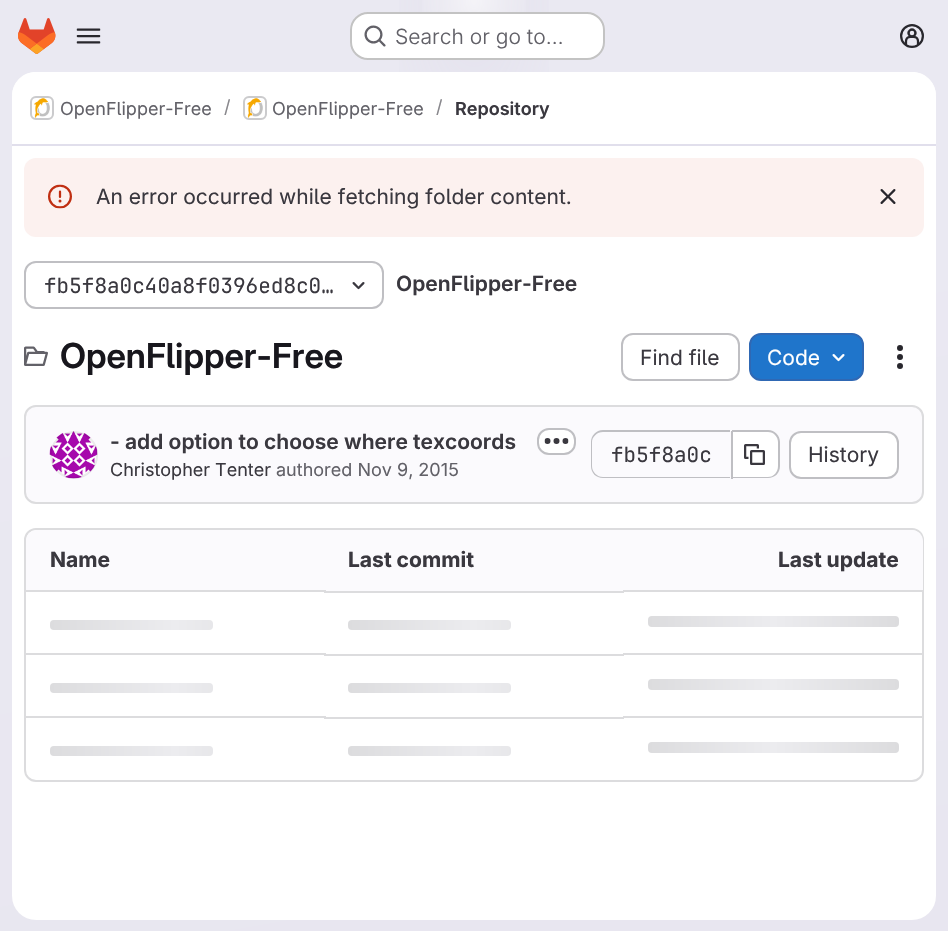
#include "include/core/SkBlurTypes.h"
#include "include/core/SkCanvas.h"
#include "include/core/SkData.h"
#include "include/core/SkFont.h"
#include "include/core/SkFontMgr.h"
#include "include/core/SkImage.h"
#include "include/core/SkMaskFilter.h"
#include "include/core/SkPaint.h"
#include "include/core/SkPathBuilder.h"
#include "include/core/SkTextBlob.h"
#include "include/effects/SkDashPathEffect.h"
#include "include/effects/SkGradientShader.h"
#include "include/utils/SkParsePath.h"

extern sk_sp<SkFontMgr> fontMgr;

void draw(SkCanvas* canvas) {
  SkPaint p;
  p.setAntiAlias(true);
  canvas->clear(SK_ColorWHITE);
  {
    const SkColor colors[] = {SkColorSetRGB(232, 230, 240), SkColorSetRGB(234, 233, 242)};
    const float stops[] = {0, 0.7f};
    const SkPoint ends[] = {{568, 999}, {380, -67}};
    p.setShader(SkGradientShader::MakeLinear(ends, colors, stops, 2, SkTileMode::kClamp));
    p.setAlpha(255);
  }
  canvas->drawRect(SkRect::MakeLTRB(0, 0, 948, 931), p);
  {
    const SkColor colors[] = {SkColorSetRGB(228, 226, 237), SkColorSetARGB(0, 228, 226, 237)};
    const float stops[] = {0, 0.22f};
    SkMatrix m = SkMatrix::Translate(474, 0).preScale(474, 932);
    p.setShader(SkGradientShader::MakeRadial({0, 0}, 1, colors, stops, 2, SkTileMode::kClamp, 0, &m));
    p.setAlpha(255);
  }
  canvas->drawRect(SkRect::MakeLTRB(399, 0, 549, 72), p);
  {
    const SkColor colors[] = {SkColorSetRGB(228, 226, 236), SkColorSetARGB(0, 228, 226, 236)};
    const float stops[] = {0, 0.16f};
    SkMatrix m = SkMatrix::Translate(474, 0).preScale(474, 932);
    p.setShader(SkGradientShader::MakeRadial({0, 0}, 1, colors, stops, 2, SkTileMode::kClamp, 0, &m));
    p.setAlpha(255);
  }
  canvas->drawRect(SkRect::MakeLTRB(438, 0, 510, 60), p);
  {
    const SkColor colors[] = {SkColorSetARGB(153, 255, 255, 255), SkColorSetARGB(0, 255, 255, 255)};
    const float stops[] = {0, 0.06f};
    p.setShader(SkGradientShader::MakeRadial({474, 0}, 1045, colors, stops, 2, SkTileMode::kClamp));
    p.setAlpha(255);
  }
  canvas->drawRect(SkRect::MakeLTRB(422, 0, 526, 53), p);
  canvas->drawImageRect(SkImages::DeferredFromEncodedData(SkData::MakeFromFileName("images/1.png")), SkRect::MakeLTRB(18, 18, 56, 54), SkSamplingOptions());
  canvas->drawImageRect(SkImages::DeferredFromEncodedData(SkData::MakeFromFileName("images/2.png")), SkRect::MakeLTRB(76, 28, 101, 44), SkSamplingOptions());
  p.setShader(nullptr);
  p.setColor(SK_ColorWHITE);
  canvas->drawRoundRect(SkRect::MakeLTRB(350, 12, 605, 60), 18, 18, p);
  p.setStyle(SkPaint::kStroke_Style);
  p.setStrokeWidth(2);
  p.setColor(SkColorSetARGB(61, 5, 5, 6));
  canvas->drawRoundRect(SkRect::MakeLTRB(351, 13, 604, 59), 17, 17, p);
  canvas->drawImageRect(SkImages::DeferredFromEncodedData(SkData::MakeFromFileName("images/3.png")), SkRect::MakeLTRB(364, 25, 386, 47), SkSamplingOptions());
  canvas->drawImageRect(SkImages::DeferredFromEncodedData(SkData::MakeFromFileName("images/4.png")), SkRect::MakeLTRB(900, 24, 924, 48), SkSamplingOptions());
  p.setStyle(SkPaint::kFill_Style);
  p.setColor(SK_ColorWHITE);
  canvas->drawRoundRect(SkRect::MakeLTRB(12, 72, 936, 920), 24, 24, p);
  canvas->drawPath(SkPathBuilder().moveTo(36, 72).lineTo(912, 72).cubicTo(925.5f, 72, 936, 82.5f, 936, 96).lineTo(936, 146).lineTo(12, 146).lineTo(12, 96).cubicTo(12, 82.5f, 22.5f, 72, 36, 72).close().detach(), p);
  p.setColor(SkColorSetRGB(225, 223, 236));
  canvas->drawRect(SkRect::MakeLTRB(12, 144, 936, 146), p);
  p.setStyle(SkPaint::kStroke_Style);
  p.setColor(SkColorSetRGB(220, 220, 222));
  canvas->drawRoundRect(SkRect::MakeLTRB(31, 97, 53, 119), 5, 5, p);
  canvas->drawImageRect(SkImages::DeferredFromEncodedData(SkData::MakeFromFileName("images/5.png")), SkRect::MakeLTRB(34, 98, 50, 118), SkSamplingOptions());
  p.setColor(SkColorSetARGB(20, 5, 5, 6));
  canvas->drawRoundRect(SkRect::MakeLTRB(31, 97, 53, 119), 5, 5, p);
  p.setColor(SkColorSetRGB(220, 220, 222));
  canvas->drawRoundRect(SkRect::MakeLTRB(244, 97, 266, 119), 5, 5, p);
  canvas->drawImageRect(SkImages::DeferredFromEncodedData(SkData::MakeFromFileName("images/5.png")), SkRect::MakeLTRB(247, 98, 263, 118), SkSamplingOptions());
  p.setColor(SkColorSetARGB(20, 5, 5, 6));
  canvas->drawRoundRect(SkRect::MakeLTRB(244, 97, 266, 119), 5, 5, p);
  p.setStyle(SkPaint::kFill_Style);
  p.setColor(SkColorSetRGB(252, 241, 239));
  canvas->drawRoundRect(SkRect::MakeLTRB(24, 158, 924, 237), 12, 12, p);
  canvas->drawImageRect(SkImages::DeferredFromEncodedData(SkData::MakeFromFileName("images/6.png")), SkRect::MakeLTRB(48, 184, 72, 209), SkSamplingOptions());
  canvas->drawImageRect(SkImages::DeferredFromEncodedData(SkData::MakeFromFileName("images/7.png")), SkRect::MakeLTRB(880, 189, 896, 204), SkSamplingOptions());
  p.setStyle(SkPaint::kStroke_Style);
  p.setColor(SkColorSetRGB(191, 191, 195));
  canvas->drawRoundRect(SkRect::MakeLTRB(25, 262, 383, 308), 11, 11, p);
  canvas->drawImageRect(SkImages::DeferredFromEncodedData(SkData::MakeFromFileName("images/8.png")), SkRect::MakeLTRB(352, 282, 365, 290), SkSamplingOptions());
  canvas->drawImageRect(SkImages::DeferredFromEncodedData(SkData::MakeFromFileName("images/9.png")), SkRect::MakeLTRB(24, 346, 48, 366), SkSamplingOptions());
  canvas->drawRoundRect(SkRect::MakeLTRB(622, 334, 739, 380), 11, 11, p);
  p.setStyle(SkPaint::kFill_Style);
  p.setColor(SkColorSetRGB(31, 117, 203));
  canvas->drawRoundRect(SkRect::MakeLTRB(750, 334, 863, 380), 11, 11, p);
  p.setStyle(SkPaint::kStroke_Style);
  p.setColor(SkColorSetRGB(47, 104, 180));
  canvas->drawRoundRect(SkRect::MakeLTRB(750, 334, 863, 380), 11, 11, p);
  canvas->drawImageRect(SkImages::DeferredFromEncodedData(SkData::MakeFromFileName("images/10.png")), SkRect::MakeLTRB(832, 354, 845, 362), SkSamplingOptions());
  canvas->drawImageRect(SkImages::DeferredFromEncodedData(SkData::MakeFromFileName("images/11.png")), SkRect::MakeLTRB(897, 345, 903, 369), SkSamplingOptions());
  p.setStyle(SkPaint::kFill_Style);
  p.setColor(SkColorSetRGB(251, 250, 253));
  canvas->drawRoundRect(SkRect::MakeLTRB(25, 406, 923, 503), 11, 11, p);
  p.setStyle(SkPaint::kStroke_Style);
  p.setColor(SkColorSetRGB(220, 220, 222));
  canvas->drawRoundRect(SkRect::MakeLTRB(25, 406, 923, 503), 11, 11, p);
  canvas->drawImageRect(SkImages::DeferredFromEncodedData(SkData::MakeFromFileName("images/12.png")), SkRect::MakeLTRB(49, 431, 98, 479), SkSamplingOptions());
  p.setColor(SkColorSetARGB(20, 5, 5, 6));
  canvas->drawCircle(74, 455, 23, p);
  p.setStyle(SkPaint::kFill_Style);
  p.setColor(SK_ColorWHITE);
  canvas->drawRoundRect(SkRect::MakeLTRB(538, 429, 575, 454), 11, 11, p);
  p.setStyle(SkPaint::kStroke_Style);
  p.setColor(SkColorSetRGB(191, 191, 195));
  canvas->drawRoundRect(SkRect::MakeLTRB(538, 429, 575, 454), 11, 11, p);
  canvas->drawImageRect(SkImages::DeferredFromEncodedData(SkData::MakeFromFileName("images/13.png")), SkRect::MakeLTRB(544, 438, 569, 444), SkSamplingOptions());
  p.setStyle(SkPaint::kFill_Style);
  canvas->drawPath(SkPathBuilder(SkPathFillType::kEvenOdd).moveTo(603, 430).lineTo(730, 430).lineTo(730, 478).lineTo(603, 478).cubicTo(596, 478, 591, 473, 591, 466).lineTo(591, 442).cubicTo(591, 436, 596, 430, 603, 430).close().moveTo(603, 432).lineTo(730, 432).lineTo(730, 477).lineTo(603, 477).cubicTo(597, 477, 592, 472, 592, 466).lineTo(592, 442).cubicTo(592, 437, 597, 432, 603, 432).close().detach(), p);
  p.setColor(SK_ColorWHITE);
  canvas->drawPath(SkPathBuilder().moveTo(732, 432).lineTo(768, 432).cubicTo(774, 432, 779, 437, 779, 443).lineTo(779, 466).cubicTo(779, 472, 774, 477, 768, 477).lineTo(732, 477).close().detach(), p);
  p.setColor(SkColorSetRGB(191, 191, 195));
  canvas->drawPath(SkPathBuilder(SkPathFillType::kEvenOdd).moveTo(732, 430).lineTo(768, 430).cubicTo(775, 430, 780, 436, 780, 442).lineTo(780, 466).cubicTo(780, 473, 775, 478, 768, 478).lineTo(732, 478).close().moveTo(732, 432).lineTo(768, 432).cubicTo(774, 432, 778, 437, 778, 442).lineTo(778, 466).cubicTo(778, 472, 774, 477, 768, 477).lineTo(732, 477).close().detach(), p);
  canvas->drawRect(SkRect::MakeLTRB(731, 431, 733, 479), p);
  canvas->drawImageRect(SkImages::DeferredFromEncodedData(SkData::MakeFromFileName("images/14.png")), SkRect::MakeLTRB(744, 444, 765, 465), SkSamplingOptions());
  p.setColor(SK_ColorWHITE);
  canvas->drawRoundRect(SkRect::MakeLTRB(790, 432, 898, 478), 11, 11, p);
  p.setStyle(SkPaint::kStroke_Style);
  p.setColor(SkColorSetRGB(191, 191, 195));
  canvas->drawRoundRect(SkRect::MakeLTRB(790, 432, 898, 478), 11, 11, p);
  p.setColor(SkColorSetRGB(220, 220, 222));
  canvas->drawRoundRect(SkRect::MakeLTRB(25, 529, 923, 781), 11, 11, p);
  p.setStyle(SkPaint::kFill_Style);
  p.setColor(SkColorSetRGB(251, 250, 253));
  canvas->drawPath(SkPathBuilder().moveTo(37, 530).lineTo(324, 530).lineTo(324, 591).lineTo(26, 591).lineTo(26, 541).cubicTo(26, 535, 31, 530, 37, 530).close().detach(), p);
  canvas->drawRect(SkRect::MakeLTRB(324, 530, 624, 591), p);
  canvas->drawPath(SkPathBuilder().moveTo(624, 530).lineTo(912, 530).cubicTo(918, 530, 923, 535, 923, 541).lineTo(923, 591).lineTo(624, 591).close().detach(), p);
  p.setColor(SkColorSetRGB(220, 220, 222));
  canvas->drawRect(SkRect::MakeLTRB(324, 591, 624, 593), p);
  canvas->drawRect(SkRect::MakeLTRB(26, 590, 326, 592), p);
  {
    const SkColor colors[] = {SkColorSetRGB(220, 220, 222), SkColorSetRGB(236, 236, 239), SkColorSetRGB(220, 220, 222)};
    const float stops[] = {0, 0.5f, 1};
    const SkPoint ends[] = {{50, 620}, {300, 620}};
    p.setShader(SkGradientShader::MakeLinear(ends, colors, stops, 3, SkTileMode::kClamp));
    p.setAlpha(255);
  }
  canvas->drawRoundRect(SkRect::MakeLTRB(50, 620, 213, 630), 4, 4, p);
  {
    const SkColor colors[] = {SkColorSetRGB(220, 220, 222), SkColorSetRGB(236, 236, 239), SkColorSetRGB(220, 220, 222)};
    const float stops[] = {0, 0.5f, 1};
    const SkPoint ends[] = {{348, 620}, {599, 620}};
    p.setShader(SkGradientShader::MakeLinear(ends, colors, stops, 3, SkTileMode::kClamp));
    p.setAlpha(255);
  }
  canvas->drawRoundRect(SkRect::MakeLTRB(348, 620, 511, 630), 4, 4, p);
  p.setShader(nullptr);
  p.setColor(SkColorSetRGB(220, 220, 222));
  canvas->drawRect(SkRect::MakeLTRB(623, 590, 923, 592), p);
  {
    const SkColor colors[] = {SkColorSetRGB(220, 220, 222), SkColorSetRGB(236, 236, 239), SkColorSetRGB(220, 220, 222)};
    const float stops[] = {0, 0.5f, 1};
    const SkPoint ends[] = {{648, 616}, {899, 616}};
    p.setShader(SkGradientShader::MakeLinear(ends, colors, stops, 3, SkTileMode::kClamp));
    p.setAlpha(255);
  }
  canvas->drawRoundRect(SkRect::MakeLTRB(648, 616, 899, 627), 4, 4, p);
  p.setShader(nullptr);
  p.setColor(SkColorSetRGB(220, 220, 222));
  canvas->drawRect(SkRect::MakeLTRB(324, 654, 624, 656), p);
  canvas->drawRect(SkRect::MakeLTRB(26, 653, 326, 655), p);
  {
    const SkColor colors[] = {SkColorSetRGB(220, 220, 222), SkColorSetRGB(236, 236, 239), SkColorSetRGB(220, 220, 222)};
    const float stops[] = {0, 0.5f, 1};
    const SkPoint ends[] = {{50, 683}, {300, 683}};
    p.setShader(SkGradientShader::MakeLinear(ends, colors, stops, 3, SkTileMode::kClamp));
    p.setAlpha(255);
  }
  canvas->drawRoundRect(SkRect::MakeLTRB(50, 683, 213, 693), 4, 4, p);
  {
    const SkColor colors[] = {SkColorSetRGB(220, 220, 222), SkColorSetRGB(236, 236, 239), SkColorSetRGB(220, 220, 222)};
    const float stops[] = {0, 0.5f, 1};
    const SkPoint ends[] = {{348, 683}, {599, 683}};
    p.setShader(SkGradientShader::MakeLinear(ends, colors, stops, 3, SkTileMode::kClamp));
    p.setAlpha(255);
  }
  canvas->drawRoundRect(SkRect::MakeLTRB(348, 683, 511, 693), 4, 4, p);
  p.setShader(nullptr);
  p.setColor(SkColorSetRGB(220, 220, 222));
  canvas->drawRect(SkRect::MakeLTRB(623, 653, 923, 655), p);
  {
    const SkColor colors[] = {SkColorSetRGB(220, 220, 222), SkColorSetRGB(236, 236, 239), SkColorSetRGB(220, 220, 222)};
    const float stops[] = {0, 0.5f, 1};
    const SkPoint ends[] = {{648, 679}, {899, 679}};
    p.setShader(SkGradientShader::MakeLinear(ends, colors, stops, 3, SkTileMode::kClamp));
    p.setAlpha(255);
  }
  canvas->drawRoundRect(SkRect::MakeLTRB(648, 679, 899, 690), 4, 4, p);
  p.setShader(nullptr);
  p.setColor(SkColorSetRGB(220, 220, 222));
  canvas->drawRect(SkRect::MakeLTRB(324, 717, 624, 719), p);
  canvas->drawRect(SkRect::MakeLTRB(26, 716, 326, 718), p);
  {
    const SkColor colors[] = {SkColorSetRGB(220, 220, 222), SkColorSetRGB(236, 236, 239), SkColorSetRGB(220, 220, 222)};
    const float stops[] = {0, 0.5f, 1};
    const SkPoint ends[] = {{50, 746}, {300, 746}};
    p.setShader(SkGradientShader::MakeLinear(ends, colors, stops, 3, SkTileMode::kClamp));
    p.setAlpha(255);
  }
  canvas->drawRoundRect(SkRect::MakeLTRB(50, 746, 213, 756), 4, 4, p);
  {
    const SkColor colors[] = {SkColorSetRGB(220, 220, 222), SkColorSetRGB(236, 236, 239), SkColorSetRGB(220, 220, 222)};
    const float stops[] = {0, 0.5f, 1};
    const SkPoint ends[] = {{348, 746}, {599, 746}};
    p.setShader(SkGradientShader::MakeLinear(ends, colors, stops, 3, SkTileMode::kClamp));
    p.setAlpha(255);
  }
  canvas->drawRoundRect(SkRect::MakeLTRB(348, 746, 511, 756), 4, 4, p);
  p.setShader(nullptr);
  p.setColor(SkColorSetRGB(220, 220, 222));
  canvas->drawRect(SkRect::MakeLTRB(623, 716, 923, 718), p);
  {
    const SkColor colors[] = {SkColorSetRGB(220, 220, 222), SkColorSetRGB(236, 236, 239), SkColorSetRGB(220, 220, 222)};
    const float stops[] = {0, 0.5f, 1};
    const SkPoint ends[] = {{648, 742}, {899, 742}};
    p.setShader(SkGradientShader::MakeLinear(ends, colors, stops, 3, SkTileMode::kClamp));
    p.setAlpha(255);
  }
  canvas->drawRoundRect(SkRect::MakeLTRB(648, 742, 899, 753), 4, 4, p);
  SkFont font1(fontMgr->matchFamilyStyle("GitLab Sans", SkFontStyle(300, SkFontStyle::kNormal_Width, SkFontStyle::kUpright_Slant)), 21);
  font1.setSubpixel(true);
  p.setShader(nullptr);
  p.setColor(SkColorSetRGB(98, 97, 104));
  canvas->drawString("Search or go to…", 395, 44, font1, p);
  SkFont font2(fontMgr->matchFamilyStyle("GitLab Sans", SkFontStyle::Normal()), 18);
  font2.setSubpixel(true);
  canvas->drawString("OpenFlipper-Free", 60, 115, font2, p);
  p.setColor(SkColorSetRGB(137, 136, 141));
  canvas->drawString("/", 224, 113, font2, p);
  p.setColor(SkColorSetRGB(98, 97, 104));
  canvas->drawString("OpenFlipper-Free", 272, 115, font2, p);
  p.setColor(SkColorSetRGB(137, 136, 141));
  canvas->drawString("/", 436, 113, font2, p);
  SkFont font3(fontMgr->matchFamilyStyle("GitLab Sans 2", SkFontStyle(600, SkFontStyle::kNormal_Width, SkFontStyle::kUpright_Slant)), 18);
  font3.setSubpixel(true);
  p.setColor(SkColorSetRGB(58, 56, 63));
  canvas->drawString("Repository", 455, 115, font3, p);
  SkFont font4(fontMgr->matchFamilyStyle("GitLab Sans", SkFontStyle::Normal()), 21);
  font4.setSubpixel(true);
  canvas->drawString("An error occurred while fetching folder content.", 96, 204, font4, p);
  SkFont font5(fontMgr->matchFamilyStyle("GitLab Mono", SkFontStyle::Normal()), 21);
  font5.setSubpixel(true);
  canvas->drawString("fb5f8a0c40a8f0396ed8c0…", 44, 293, font5, p);
  SkFont font6(fontMgr->matchFamilyStyle("GitLab Sans 2", SkFontStyle(600, SkFontStyle::kNormal_Width, SkFontStyle::kUpright_Slant)), 21);
  font6.setSubpixel(true);
  canvas->drawString("OpenFlipper-Free", 396, 291, font6, p);
  SkFont font7(fontMgr->matchFamilyStyle("GitLab Sans", SkFontStyle(600, SkFontStyle::kNormal_Width, SkFontStyle::kUpright_Slant)), 34.5f);
  font7.setSubpixel(true);
  p.setColor(SkColorSetRGB(24, 23, 29));
  canvas->drawString("OpenFlipper-Free", 60, 368, font7, p);
  p.setColor(SkColorSetRGB(58, 56, 63));
  canvas->drawString("Find file", 640, 365, font4, p);
  p.setColor(SK_ColorWHITE);
  canvas->drawString("Code", 767, 365, font4, p);
  p.setColor(SkColorSetRGB(58, 56, 63));
  canvas->drawString("- add option to choose where texcoords", 110, 449, font6, p);
  canvas->drawString("Christopher Tenter", 110, 476, font2, p);
  p.setColor(SkColorSetRGB(98, 97, 104));
  canvas->drawString("authored Nov 9, 2015", 276, 476, font2, p);
  p.setColor(SkColorSetRGB(58, 56, 63));
  canvas->drawString("fb5f8a0c", 611, 462, font5, p);
  canvas->drawString("History", 808, 462, font4, p);
  SkFont font8(fontMgr->matchFamilyStyle("GitLab Sans", SkFontStyle::Bold()), 21);
  font8.setSubpixel(true);
  canvas->drawString("Name", 50, 567, font8, p);
  canvas->drawString("Last commit", 348, 567, font8, p);
  canvas->drawString("Last update", 778, 567, font8, p);
}
